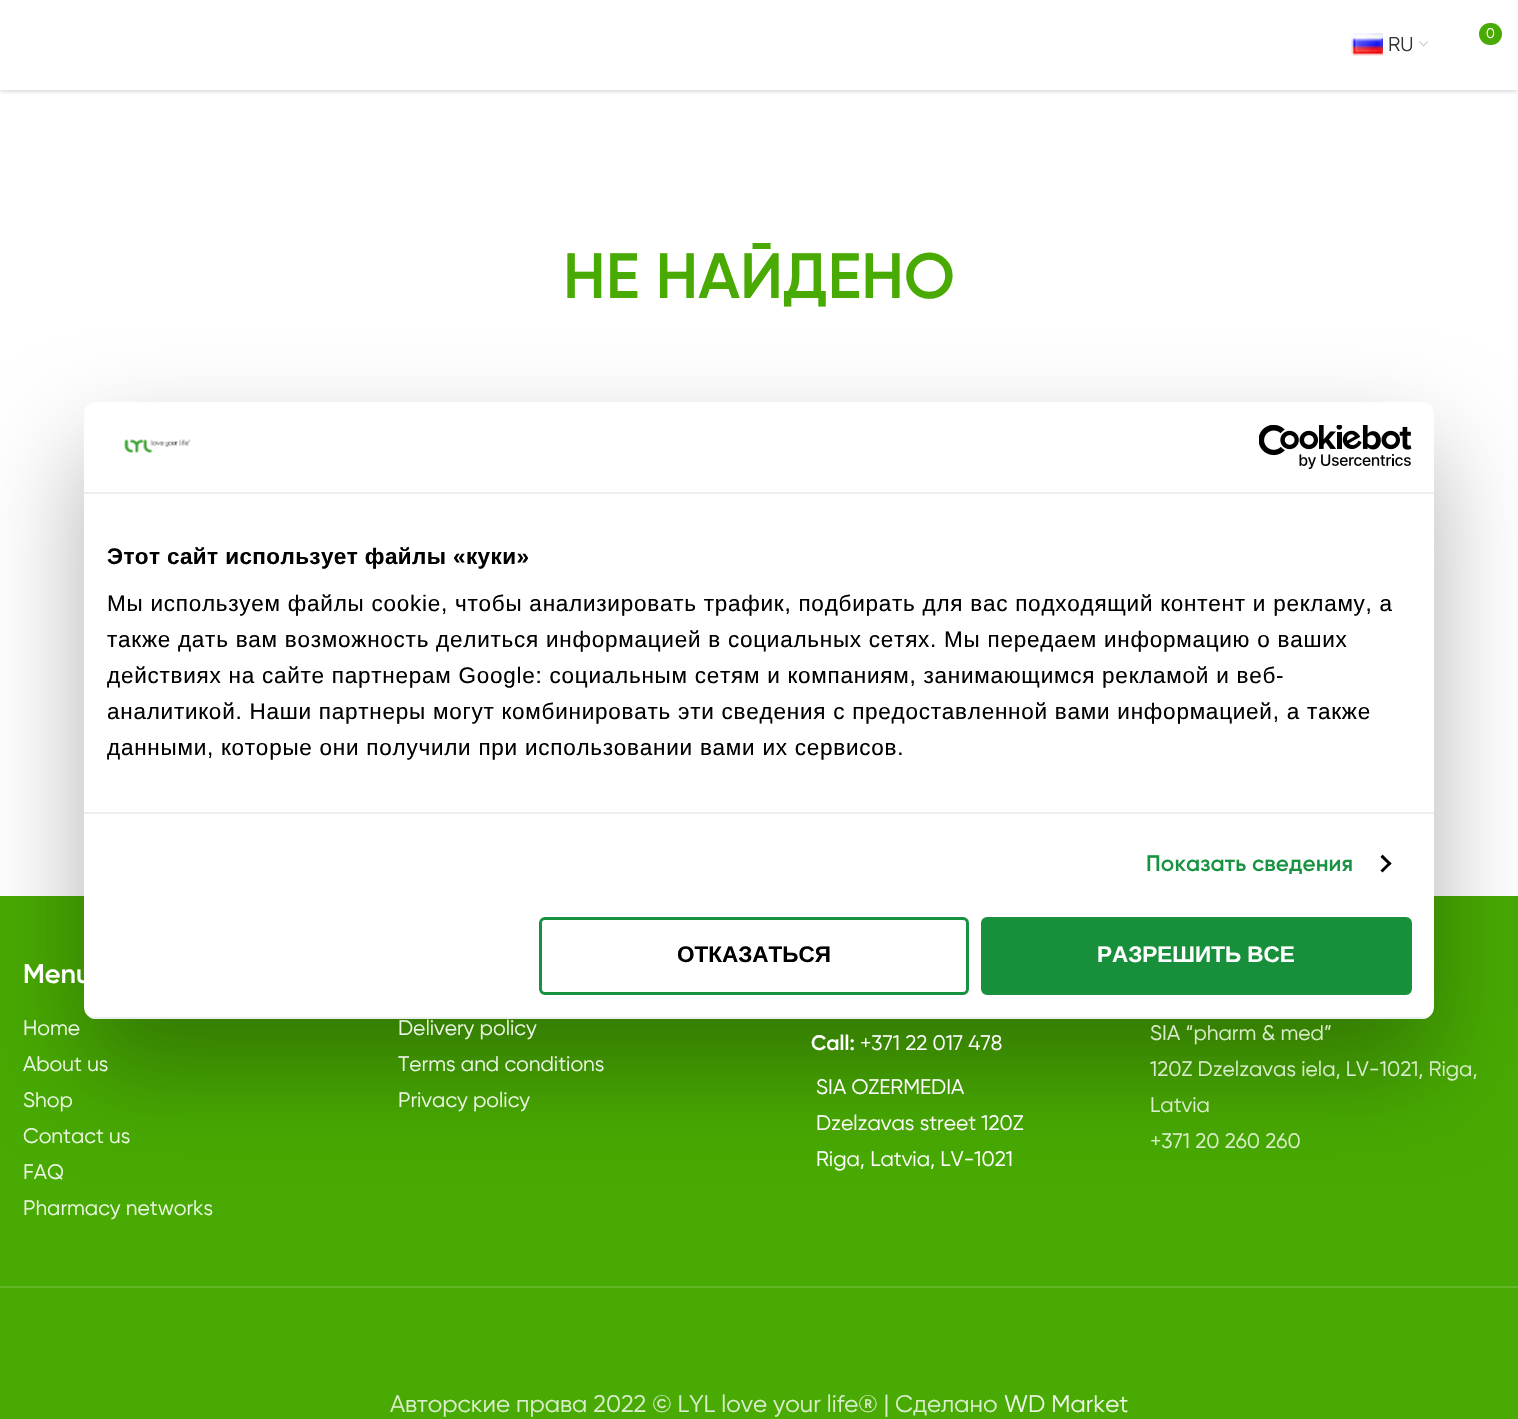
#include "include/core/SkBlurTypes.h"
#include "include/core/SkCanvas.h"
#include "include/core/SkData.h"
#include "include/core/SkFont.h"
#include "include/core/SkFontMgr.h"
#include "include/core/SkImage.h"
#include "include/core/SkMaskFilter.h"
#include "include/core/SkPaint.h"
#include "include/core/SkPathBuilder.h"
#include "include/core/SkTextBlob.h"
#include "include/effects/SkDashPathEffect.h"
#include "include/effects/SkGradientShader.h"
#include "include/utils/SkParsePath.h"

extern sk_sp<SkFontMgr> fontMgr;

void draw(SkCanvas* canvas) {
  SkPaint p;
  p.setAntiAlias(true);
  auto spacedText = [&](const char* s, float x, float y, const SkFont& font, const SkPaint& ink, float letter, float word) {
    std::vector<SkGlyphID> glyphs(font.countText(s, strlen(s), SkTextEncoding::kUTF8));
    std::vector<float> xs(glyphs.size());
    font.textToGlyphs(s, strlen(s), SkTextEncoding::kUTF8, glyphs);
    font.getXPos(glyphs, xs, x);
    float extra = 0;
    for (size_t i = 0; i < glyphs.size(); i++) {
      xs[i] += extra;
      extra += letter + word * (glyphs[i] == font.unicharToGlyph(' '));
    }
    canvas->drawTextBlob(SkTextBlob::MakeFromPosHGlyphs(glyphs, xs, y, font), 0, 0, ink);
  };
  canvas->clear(SK_ColorWHITE);
  canvas->save();
  canvas->clipRect(SkRect::MakeLTRB(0, 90, 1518, 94));
  p.setColor(SkColorSetARGB(64, 0, 0, 0));
  p.setMaskFilter(SkMaskFilter::MakeBlur(kNormal_SkBlurStyle, 3));
  canvas->drawRect(SkRect::MakeLTRB(0, 0, 1518, 90), p);
  p.setMaskFilter(nullptr);
  canvas->restore();
  p.setColor(SkColorSetRGB(72, 170, 2));
  canvas->drawRoundRect(SkRect::MakeLTRB(1479, 23, 1502, 45), 11, 11, p);
  canvas->drawImageRect(SkImages::DeferredFromEncodedData(SkData::MakeFromFileName("images/1.png")), SkRect::MakeLTRB(1351, 33, 1383, 56), SkSamplingOptions());
  canvas->drawImageRect(SkImages::DeferredFromEncodedData(SkData::MakeFromFileName("images/2.png")), SkRect::MakeLTRB(1419, 41, 1428, 47), SkSamplingOptions());
  canvas->drawRect(SkRect::MakeLTRB(0, 896, 1518, 1419), p);
  p.setColor(SkColorSetRGB(99, 183, 40));
  canvas->drawRect(SkRect::MakeLTRB(0, 1286, 1518, 1288), p);
  p.setColor(SkColorSetARGB(77, 0, 0, 0));
  p.setMaskFilter(SkMaskFilter::MakeBlur(kNormal_SkBlurStyle, 51));
  canvas->drawRoundRect(SkRect::MakeLTRB(84, 450, 1434, 1067), 12, 12, p);
  p.setMaskFilter(nullptr);
  p.setColor(SK_ColorWHITE);
  canvas->drawRoundRect(SkRect::MakeLTRB(84, 402, 1434, 1019), 12, 12, p);
  p.setColor(SkColorSetRGB(238, 238, 238));
  canvas->drawRect(SkRect::MakeLTRB(84, 492, 1434, 494), p);
  canvas->drawImageRect(SkImages::DeferredFromEncodedData(SkData::MakeFromFileName("images/3.png")), SkRect::MakeLTRB(124, 439, 191, 453), SkSamplingOptions());
  canvas->drawImageRect(SkImages::DeferredFromEncodedData(SkData::MakeFromFileName("images/4.png")), SkRect::MakeLTRB(1259, 425, 1412, 469), SkSamplingOptions());
  canvas->drawRect(SkRect::MakeLTRB(84, 812, 1434, 814), p);
  p.setColor(SK_ColorBLACK);
  canvas->drawPath(SkPathBuilder().moveTo(1382.5f, 854.5f).lineTo(1391.5f, 863.5f).lineTo(1389.5f, 865.5f).lineTo(1380.5f, 857).close().detach(), p);
  canvas->drawPath(SkPathBuilder().moveTo(1389.5f, 861.5f).lineTo(1391.5f, 863.5f).lineTo(1382.5f, 872.5f).lineTo(1380.5f, 870.5f).close().detach(), p);
  canvas->save();
  canvas->clipPath(SkPathBuilder().moveTo(96, 402).lineTo(1422, 402).cubicTo(1428.5f, 402, 1434, 407.5f, 1434, 414).lineTo(1434, 1007).cubicTo(1434, 1013.5f, 1428.5f, 1019, 1422, 1019).lineTo(96, 1019).cubicTo(89.5f, 1019, 84, 1013.5f, 84, 1007).lineTo(84, 414).cubicTo(84, 407.5f, 89.5f, 402, 96, 402).close().detach(), true);
  p.setColor(SkColorSetRGB(238, 238, 238));
  canvas->drawRect(SkRect::MakeLTRB(84, 1017, 1434, 1019), p);
  canvas->restore();
  p.setStyle(SkPaint::kStroke_Style);
  p.setStrokeWidth(3);
  p.setColor(SkColorSetRGB(24, 145, 64));
  canvas->drawRoundRect(SkRect::MakeLTRB(540.5f, 918.5f, 967.5f, 993.5f), 4.5f, 4.5f, p);
  p.setStyle(SkPaint::kFill_Style);
  p.setColor(SkColorSetRGB(24, 144, 59));
  canvas->drawRoundRect(SkRect::MakeLTRB(982.5f, 918.5f, 1410.5f, 993.5f), 4.5f, 4.5f, p);
  p.setStyle(SkPaint::kStroke_Style);
  p.setColor(SkColorSetRGB(24, 144, 61));
  canvas->drawRoundRect(SkRect::MakeLTRB(982.5f, 918.5f, 1410.5f, 993.5f), 4.5f, 4.5f, p);
  SkFont font1(fontMgr->matchFamilyStyle("Gilroy", SkFontStyle::Normal()), 14);
  font1.setSubpixel(true);
  p.setStyle(SkPaint::kFill_Style);
  p.setColor(SK_ColorWHITE);
  canvas->drawString("0", 1486, 38, font1, p);
  SkFont font2(fontMgr->matchFamilyStyle("Gilroy", SkFontStyle::Normal()), 20);
  font2.setSubpixel(true);
  p.setColor(SkColorSetRGB(51, 51, 51));
  canvas->drawString("RU", 1388, 51, font2, p);
  SkFont font3(fontMgr->matchFamilyStyle("Gilroy", SkFontStyle(600, SkFontStyle::kNormal_Width, SkFontStyle::kUpright_Slant)), 63.75f);
  font3.setSubpixel(true);
  p.setColor(SkColorSetRGB(72, 170, 2));
  canvas->drawString("НЕ НАЙДЕНО", 563, 298, font3, p);
  SkFont font4(fontMgr->matchFamilyStyle("Gilroy", SkFontStyle(600, SkFontStyle::kNormal_Width, SkFontStyle::kUpright_Slant)), 27);
  font4.setSubpixel(true);
  p.setColor(SK_ColorWHITE);
  canvas->drawString("Menu", 23, 983, font4, p);
  SkFont font5(fontMgr->matchFamilyStyle("Gilroy", SkFontStyle::Normal()), 21);
  font5.setSubpixel(true);
  p.setColor(SkColorSetRGB(237, 247, 230));
  canvas->drawString("Home", 23, 1035, font5, p);
  canvas->drawString("About us", 23, 1071, font5, p);
  canvas->drawString("Shop", 23, 1107, font5, p);
  canvas->drawString("Contact us", 23, 1143, font5, p);
  canvas->drawString("FAQ", 23, 1179, font5, p);
  canvas->drawString("Pharmacy networks", 23, 1215, font5, p);
  canvas->drawString("Delivery policy", 398, 1035, font5, p);
  canvas->drawString("Terms and conditions", 398, 1071, font5, p);
  canvas->drawString("Privacy policy", 398, 1107, font5, p);
  SkFont font6(fontMgr->matchFamilyStyle("Gilroy", SkFontStyle(600, SkFontStyle::kNormal_Width, SkFontStyle::kUpright_Slant)), 21);
  font6.setSubpixel(true);
  p.setColor(SK_ColorWHITE);
  canvas->drawString("Call:", 811, 1050, font6, p);
  canvas->drawString("+371 22 017 478", 860, 1050, font5, p);
  canvas->drawString("SIA OZERMEDIA", 816, 1094, font5, p);
  canvas->drawString("Dzelzavas street 120Z", 816, 1130, font5, p);
  canvas->drawString("Riga, Latvia, LV-1021", 816, 1166, font5, p);
  p.setColor(SkColorSetRGB(218, 238, 204));
  canvas->drawString("SIA “pharm & med”", 1150, 1040, font5, p);
  canvas->drawString("120Z Dzelzavas iela, LV-1021, Riga,", 1150, 1076, font5, p);
  canvas->drawString("Latvia", 1150, 1112, font5, p);
  canvas->drawString("+371 20 260 260", 1150, 1148, font5, p);
  SkFont font7(fontMgr->matchFamilyStyle("Gilroy", SkFontStyle::Normal()), 24);
  font7.setSubpixel(true);
  canvas->drawString("Авторские права 2022 © LYL love your life® | Сделано", 390, 1412, font7, p);
  p.setColor(SkColorSetRGB(237, 247, 230));
  canvas->drawString("WD Market", 1004, 1412, font7, p);
  SkFont font8(fontMgr->matchFamilyStyle("Liberation Sans", SkFontStyle::Bold()), 22.5f);
  font8.setSubpixel(true);
  p.setColor(SK_ColorBLACK);
  spacedText("Этот сайт использует файлы «куки»", 107, 564, font8, p, 0.4f, 0);
  SkFont font9(fontMgr->matchFamilyStyle("Liberation Sans", SkFontStyle::Normal()), 22.5f);
  font9.setSubpixel(true);
  spacedText("Мы используем файлы cookie, чтобы анализировать трафик, подбирать для вас подходящий контент и рекламу, а", 107, 611, font9, p, 0.75f, 0);
  spacedText("также дать вам возможность делиться информацией в социальных сетях. Мы передаем информацию о ваших", 107, 647, font9, p, 0.75f, 0);
  spacedText("действиях на сайте партнерам Google: социальным сетям и компаниям, занимающимся рекламой и веб-", 107, 683, font9, p, 0.75f, 0);
  spacedText("аналитикой. Наши партнеры могут комбинировать эти сведения с предоставленной вами информацией, а также", 107, 719, font9, p, 0.75f, 0);
  spacedText("данными, которые они получили при использовании вами их сервисов.", 107, 755, font9, p, 0.75f, 0);
  SkFont font10(fontMgr->matchFamilyStyle("Gilroy", SkFontStyle(600, SkFontStyle::kNormal_Width, SkFontStyle::kUpright_Slant)), 22.5f);
  font10.setSubpixel(true);
  p.setColor(SkColorSetRGB(24, 147, 66));
  spacedText("Показать сведения", 1146, 871, font10, p, 0.1f, 0);
  p.setColor(SK_ColorBLACK);
  canvas->drawString("ОТКАЗАТЬСЯ", 677, 962, font8, p);
  p.setColor(SK_ColorWHITE);
  canvas->drawString("РАЗРЕШИТЬ ВСЕ", 1097, 962, font8, p);
}
